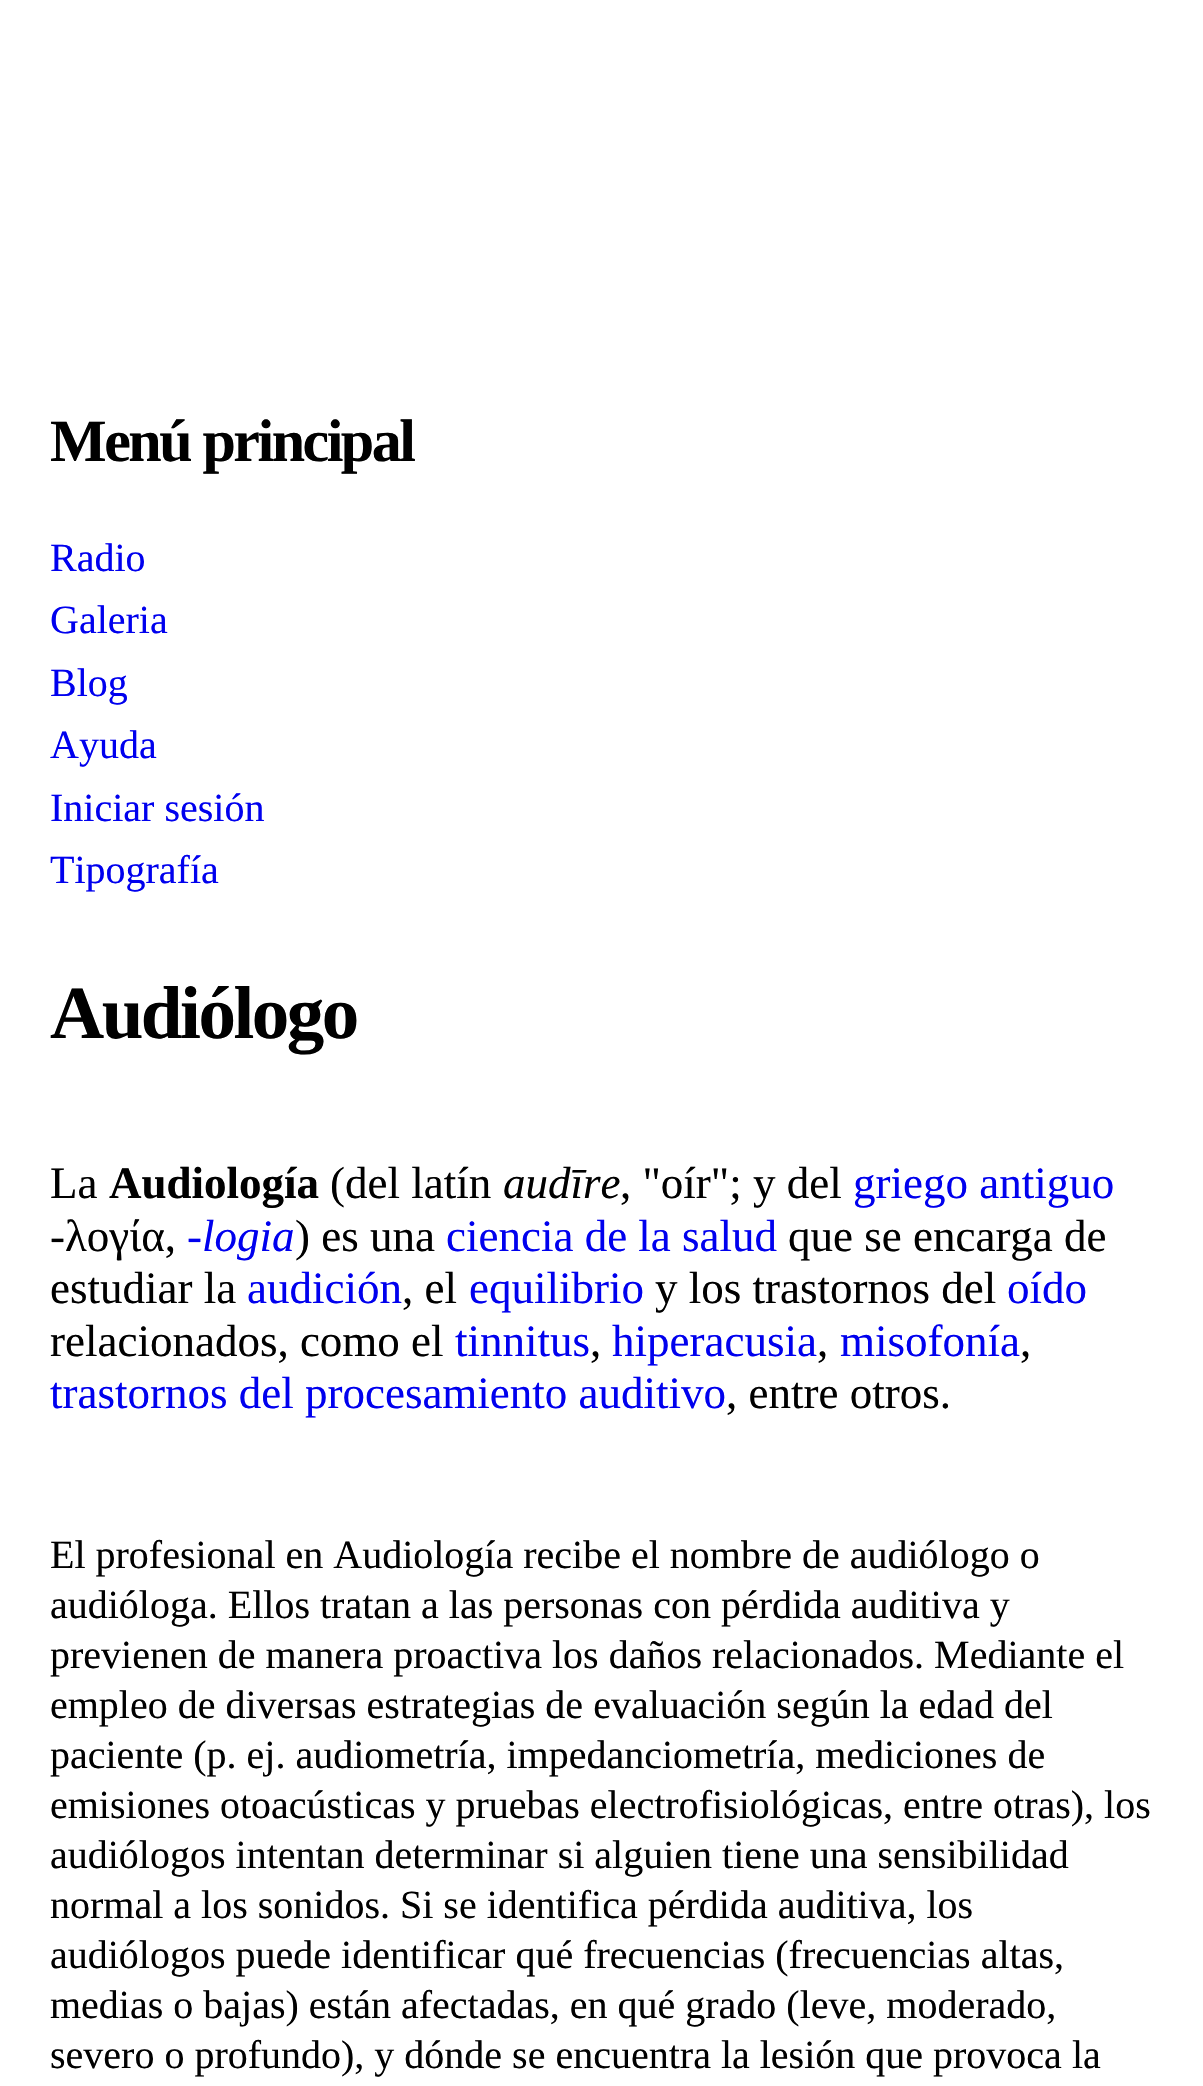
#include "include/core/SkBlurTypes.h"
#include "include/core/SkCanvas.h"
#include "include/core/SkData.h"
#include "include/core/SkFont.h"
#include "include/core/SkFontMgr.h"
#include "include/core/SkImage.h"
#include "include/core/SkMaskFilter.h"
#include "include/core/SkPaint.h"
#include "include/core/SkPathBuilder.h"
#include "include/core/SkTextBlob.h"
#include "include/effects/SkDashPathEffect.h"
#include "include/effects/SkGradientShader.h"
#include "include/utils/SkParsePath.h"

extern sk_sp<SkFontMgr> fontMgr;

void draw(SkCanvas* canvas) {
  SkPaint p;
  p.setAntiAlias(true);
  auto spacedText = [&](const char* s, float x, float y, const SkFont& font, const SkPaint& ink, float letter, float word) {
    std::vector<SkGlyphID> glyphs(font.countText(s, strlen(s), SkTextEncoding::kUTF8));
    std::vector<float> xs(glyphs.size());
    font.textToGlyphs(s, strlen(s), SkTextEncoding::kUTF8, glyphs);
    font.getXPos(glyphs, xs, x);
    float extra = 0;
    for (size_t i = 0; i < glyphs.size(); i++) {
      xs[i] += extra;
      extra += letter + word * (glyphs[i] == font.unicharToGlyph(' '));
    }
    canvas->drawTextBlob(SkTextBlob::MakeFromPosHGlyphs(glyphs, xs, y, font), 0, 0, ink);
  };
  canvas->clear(SK_ColorWHITE);
  SkFont font1(fontMgr->matchFamilyStyle("Liberation Serif", SkFontStyle::Bold()), 60);
  font1.setSubpixel(true);
  p.setColor(SK_ColorBLACK);
  spacedText("Menú principal", 50, 461, font1, p, -2.5f, 0);
  SkFont font2(fontMgr->matchFamilyStyle("Liberation Serif", SkFontStyle::Normal()), 40);
  font2.setSubpixel(true);
  p.setColor(SkColorSetRGB(0, 0, 238));
  canvas->drawString("Radio", 50, 571, font2, p);
  canvas->drawString("Galeria", 50, 633, font2, p);
  canvas->drawString("Blog", 50, 696, font2, p);
  canvas->drawString("Ayuda", 50, 758, font2, p);
  canvas->drawString("Iniciar sesión", 50, 821, font2, p);
  canvas->drawString("Tipografía", 50, 883, font2, p);
  SkFont font3(fontMgr->matchFamilyStyle("Liberation Serif", SkFontStyle::Bold()), 75);
  font3.setSubpixel(true);
  p.setColor(SK_ColorBLACK);
  spacedText("Audiólogo", 50, 1038, font3, p, -2.5f, 0);
  SkFont font4(fontMgr->matchFamilyStyle("Liberation Serif", SkFontStyle::Normal()), 45);
  font4.setSubpixel(true);
  canvas->drawString("La", 50, 1198, font4, p);
  SkFont font5(fontMgr->matchFamilyStyle("Liberation Serif", SkFontStyle::Bold()), 45);
  font5.setSubpixel(true);
  canvas->drawString("Audiología", 109, 1198, font5, p);
  canvas->drawString("(del latín", 330, 1198, font4, p);
  SkFont font6(fontMgr->matchFamilyStyle("Liberation Serif", SkFontStyle::Italic()), 45);
  font6.setSubpixel(true);
  canvas->drawString("audīre", 503, 1198, font6, p);
  canvas->drawString(", \"oír\"; y del", 620, 1198, font4, p);
  p.setColor(SkColorSetRGB(0, 0, 238));
  canvas->drawString("griego antiguo", 853, 1198, font4, p);
  p.setColor(SK_ColorBLACK);
  canvas->drawString("-λογία,", 50, 1251, font4, p);
  p.setColor(SkColorSetRGB(0, 0, 238));
  canvas->drawString("-logia", 187, 1251, font6, p);
  p.setColor(SK_ColorBLACK);
  canvas->drawString(") es una", 295, 1251, font4, p);
  p.setColor(SkColorSetRGB(0, 0, 238));
  canvas->drawString("ciencia de la salud", 446, 1251, font4, p);
  p.setColor(SK_ColorBLACK);
  canvas->drawString("que se encarga de", 788, 1251, font4, p);
  canvas->drawString("estudiar la", 50, 1303, font4, p);
  p.setColor(SkColorSetRGB(0, 0, 238));
  canvas->drawString("audición", 247, 1303, font4, p);
  p.setColor(SK_ColorBLACK);
  canvas->drawString(", el", 402, 1303, font4, p);
  p.setColor(SkColorSetRGB(0, 0, 238));
  canvas->drawString("equilibrio", 469, 1303, font4, p);
  p.setColor(SK_ColorBLACK);
  canvas->drawString("y los trastornos del", 655, 1303, font4, p);
  p.setColor(SkColorSetRGB(0, 0, 238));
  canvas->drawString("oído", 1007, 1303, font4, p);
  p.setColor(SK_ColorBLACK);
  canvas->drawString("relacionados, como el", 50, 1356, font4, p);
  p.setColor(SkColorSetRGB(0, 0, 238));
  canvas->drawString("tinnitus", 455, 1356, font4, p);
  p.setColor(SK_ColorBLACK);
  canvas->drawString(",", 590, 1356, font4, p);
  p.setColor(SkColorSetRGB(0, 0, 238));
  canvas->drawString("hiperacusia", 612, 1356, font4, p);
  p.setColor(SK_ColorBLACK);
  canvas->drawString(",", 817, 1356, font4, p);
  p.setColor(SkColorSetRGB(0, 0, 238));
  canvas->drawString("misofonía", 840, 1356, font4, p);
  p.setColor(SK_ColorBLACK);
  canvas->drawString(",", 1020, 1356, font4, p);
  p.setColor(SkColorSetRGB(0, 0, 238));
  canvas->drawString("trastornos del procesamiento auditivo", 50, 1408, font4, p);
  p.setColor(SK_ColorBLACK);
  canvas->drawString(", entre otros.", 726, 1408, font4, p);
  canvas->drawString("El profesional en Audiología recibe el nombre de audiólogo o", 50, 1568, font2, p);
  canvas->drawString("audióloga. Ellos tratan a las personas con pérdida auditiva y", 50, 1618, font2, p);
  canvas->drawString("previenen de manera proactiva los daños relacionados. Mediante el", 50, 1668, font2, p);
  canvas->drawString("empleo de diversas estrategias de evaluación según la edad del", 50, 1718, font2, p);
  canvas->drawString("paciente (p. ej. audiometría, impedanciometría, mediciones de", 50, 1768, font2, p);
  canvas->drawString("emisiones otoacústicas y pruebas electrofisiológicas, entre otras), los", 50, 1818, font2, p);
  canvas->drawString("audiólogos intentan determinar si alguien tiene una sensibilidad", 50, 1868, font2, p);
  canvas->drawString("normal a los sonidos. Si se identifica pérdida auditiva, los", 50, 1918, font2, p);
  canvas->drawString("audiólogos puede identificar qué frecuencias (frecuencias altas,", 50, 1968, font2, p);
  canvas->drawString("medias o bajas) están afectadas, en qué grado (leve, moderado,", 50, 2018, font2, p);
  canvas->drawString("severo o profundo), y dónde se encuentra la lesión que provoca la", 50, 2068, font2, p);
}
